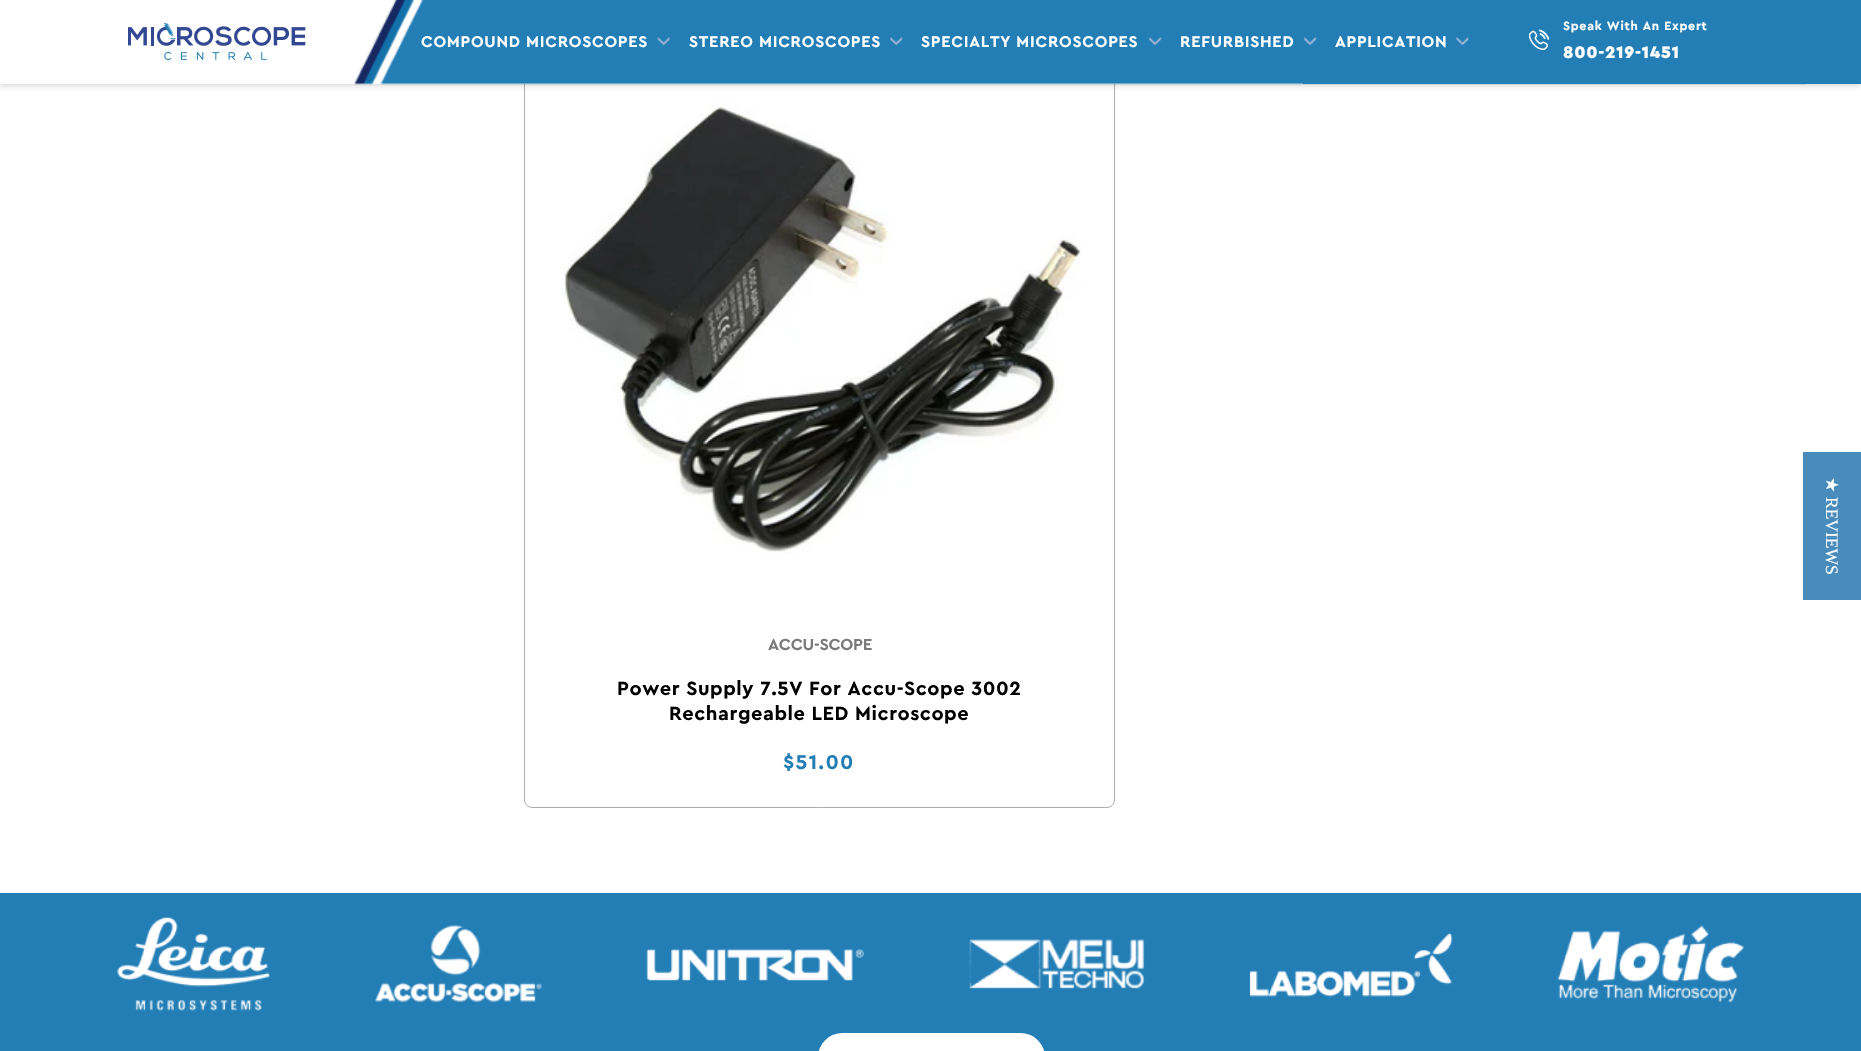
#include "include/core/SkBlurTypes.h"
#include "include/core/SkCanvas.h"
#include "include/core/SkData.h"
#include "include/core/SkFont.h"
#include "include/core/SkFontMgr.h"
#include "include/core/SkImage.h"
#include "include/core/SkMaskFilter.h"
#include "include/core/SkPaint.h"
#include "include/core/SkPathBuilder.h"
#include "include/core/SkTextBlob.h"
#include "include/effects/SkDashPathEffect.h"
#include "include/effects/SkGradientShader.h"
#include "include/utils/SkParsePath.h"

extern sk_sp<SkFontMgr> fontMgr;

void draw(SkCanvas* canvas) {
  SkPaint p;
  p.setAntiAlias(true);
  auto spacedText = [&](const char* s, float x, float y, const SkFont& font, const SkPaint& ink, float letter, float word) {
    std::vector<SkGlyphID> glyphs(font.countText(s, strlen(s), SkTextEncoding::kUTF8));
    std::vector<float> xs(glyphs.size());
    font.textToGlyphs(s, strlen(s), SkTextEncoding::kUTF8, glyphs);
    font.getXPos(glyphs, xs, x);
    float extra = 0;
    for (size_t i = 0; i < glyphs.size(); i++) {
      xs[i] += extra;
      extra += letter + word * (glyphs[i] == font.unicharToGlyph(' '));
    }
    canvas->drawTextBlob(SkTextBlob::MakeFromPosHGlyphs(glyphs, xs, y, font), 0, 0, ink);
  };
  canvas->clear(SK_ColorWHITE);
  p.setStyle(SkPaint::kStroke_Style);
  p.setStrokeWidth(1);
  p.setColor(SkColorSetRGB(173, 173, 173));
  canvas->drawRoundRect(SkRect::MakeLTRB(524.5f, 18.5f, 1114.5f, 807.5f), 7.5f, 7.5f, p);
  p.setStyle(SkPaint::kFill_Style);
  p.setColor(SkColorSetARGB(38, 0, 0, 0));
  p.setMaskFilter(SkMaskFilter::MakeBlur(kNormal_SkBlurStyle, 2.5f));
  canvas->drawRect(SkRect::MakeLTRB(0, 3, 1861, 86), p);
  p.setMaskFilter(nullptr);
  p.setColor(SK_ColorWHITE);
  canvas->drawRect(SkRect::MakeLTRB(0, 0, 1303, 84), p);
  canvas->drawImageRect(SkImages::DeferredFromEncodedData(SkData::MakeFromFileName("images/1.png")), SkRect::MakeLTRB(353, 0, 1807, 85), SkSamplingOptions());
  p.setColor(SkColorSetRGB(35, 126, 182));
  canvas->drawRect(SkRect::MakeLTRB(1303, 0, 1861, 84), p);
  canvas->drawImageRect(SkImages::DeferredFromEncodedData(SkData::MakeFromFileName("images/2.png")), SkRect::MakeLTRB(128, 23, 306, 60), SkSamplingOptions());
  canvas->drawImageRect(SkImages::DeferredFromEncodedData(SkData::MakeFromFileName("images/3.png")), SkRect::MakeLTRB(657, 37, 671, 46), SkSamplingOptions());
  canvas->drawImageRect(SkImages::DeferredFromEncodedData(SkData::MakeFromFileName("images/4.png")), SkRect::MakeLTRB(890, 37, 903, 46), SkSamplingOptions());
  canvas->drawImageRect(SkImages::DeferredFromEncodedData(SkData::MakeFromFileName("images/5.png")), SkRect::MakeLTRB(1149, 37, 1162, 46), SkSamplingOptions());
  canvas->drawImageRect(SkImages::DeferredFromEncodedData(SkData::MakeFromFileName("images/5.png")), SkRect::MakeLTRB(1304, 37, 1317, 46), SkSamplingOptions());
  canvas->drawImageRect(SkImages::DeferredFromEncodedData(SkData::MakeFromFileName("images/6.png")), SkRect::MakeLTRB(1456, 37, 1469, 46), SkSamplingOptions());
  canvas->drawImageRect(SkImages::DeferredFromEncodedData(SkData::MakeFromFileName("images/7.png")), SkRect::MakeLTRB(1529, 29, 1550, 50), SkSamplingOptions());
  p.setColor(SkColorSetRGB(73, 140, 188));
  canvas->drawRect(SkRect::MakeLTRB(1803, 452, 1861, 600), p);
  canvas->drawImageRect(SkImages::DeferredFromEncodedData(SkData::MakeFromFileName("images/8.png")), SkRect::MakeLTRB(563, 102, 1082, 554), SkSamplingOptions());
  p.setColor(SkColorSetRGB(35, 126, 182));
  canvas->drawRect(SkRect::MakeLTRB(0, 893, 1861, 1051), p);
  canvas->drawImageRect(SkImages::DeferredFromEncodedData(SkData::MakeFromFileName("images/9.png")), SkRect::MakeLTRB(117, 917, 270, 1011), SkSamplingOptions());
  canvas->drawImageRect(SkImages::DeferredFromEncodedData(SkData::MakeFromFileName("images/10.png")), SkRect::MakeLTRB(375, 925, 543, 1003), SkSamplingOptions());
  canvas->drawImageRect(SkImages::DeferredFromEncodedData(SkData::MakeFromFileName("images/11.png")), SkRect::MakeLTRB(646, 949, 864, 981), SkSamplingOptions());
  canvas->drawImageRect(SkImages::DeferredFromEncodedData(SkData::MakeFromFileName("images/12.png")), SkRect::MakeLTRB(969, 939, 1145, 989), SkSamplingOptions());
  canvas->drawImageRect(SkImages::DeferredFromEncodedData(SkData::MakeFromFileName("images/13.png")), SkRect::MakeLTRB(1249, 932, 1453, 997), SkSamplingOptions());
  canvas->drawImageRect(SkImages::DeferredFromEncodedData(SkData::MakeFromFileName("images/14.png")), SkRect::MakeLTRB(1557, 925, 1744, 1003), SkSamplingOptions());
  p.setColor(SK_ColorWHITE);
  canvas->drawRoundRect(SkRect::MakeLTRB(818, 1033, 1045, 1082), 31, 31, p);
  SkFont font1(fontMgr->matchFamilyStyle("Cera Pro", SkFontStyle::Bold()), 16.25f);
  font1.setSubpixel(true);
  spacedText("COMPOUND MICROSCOPES", 421, 47, font1, p, 0.75f, 0);
  spacedText("STEREO MICROSCOPES", 689, 47, font1, p, 0.75f, 0);
  spacedText("SPECIALTY MICROSCOPES", 921, 47, font1, p, 0.75f, 0);
  spacedText("REFURBISHED", 1180, 47, font1, p, 0.75f, 0);
  spacedText("APPLICATION", 1335, 47, font1, p, 0.75f, 0);
  SkFont font2(fontMgr->matchFamilyStyle("Cera Pro", SkFontStyle::Bold()), 12.5f);
  font2.setSubpixel(true);
  spacedText("Speak With An Expert", 1563, 30, font2, p, 0.75f, 0);
  SkFont font3(fontMgr->matchFamilyStyle("Cera Pro", SkFontStyle(900, SkFontStyle::kNormal_Width, SkFontStyle::kUpright_Slant)), 17.5f);
  font3.setSubpixel(true);
  spacedText("800-219-1451", 1563, 58, font3, p, 0.75f, 0);
  SkFont font4(fontMgr->matchFamilyStyle("DejaVu Sans", SkFontStyle::Normal()), 17.5f);
  font4.setSubpixel(true);
  canvas->save();
  canvas->rotate(90, 1826, 477);
  canvas->drawString("★", 1826, 477, font4, p);
  canvas->restore();
  SkFont font5(fontMgr->matchFamilyStyle("Liberation Serif", SkFontStyle::Normal()), 17.5f);
  font5.setSubpixel(true);
  canvas->save();
  canvas->rotate(90, 1826, 497);
  canvas->drawString("REVIEWS", 1826, 497, font5, p);
  canvas->restore();
  SkFont font6(fontMgr->matchFamilyStyle("Cera Pro", SkFontStyle::Bold()), 16.75f);
  font6.setSubpixel(true);
  p.setColor(SkColorSetRGB(122, 122, 122));
  spacedText("ACCU-SCOPE", 768, 650, font6, p, -0.25f, 0);
  SkFont font7(fontMgr->matchFamilyStyle("Cera Pro", SkFontStyle::Bold()), 20);
  font7.setSubpixel(true);
  p.setColor(SK_ColorBLACK);
  spacedText("Power Supply 7.5V For Accu-Scope 3002", 617, 695, font7, p, 0.55f, 0);
  spacedText("Rechargeable LED Microscope", 669, 720, font7, p, 0.55f, 0);
  SkFont font8(fontMgr->matchFamilyStyle("Cera Pro", SkFontStyle::Bold()), 21);
  font8.setSubpixel(true);
  p.setColor(SkColorSetRGB(35, 126, 182));
  spacedText("$51.00", 783, 769, font8, p, 1.25f, 0);
}
